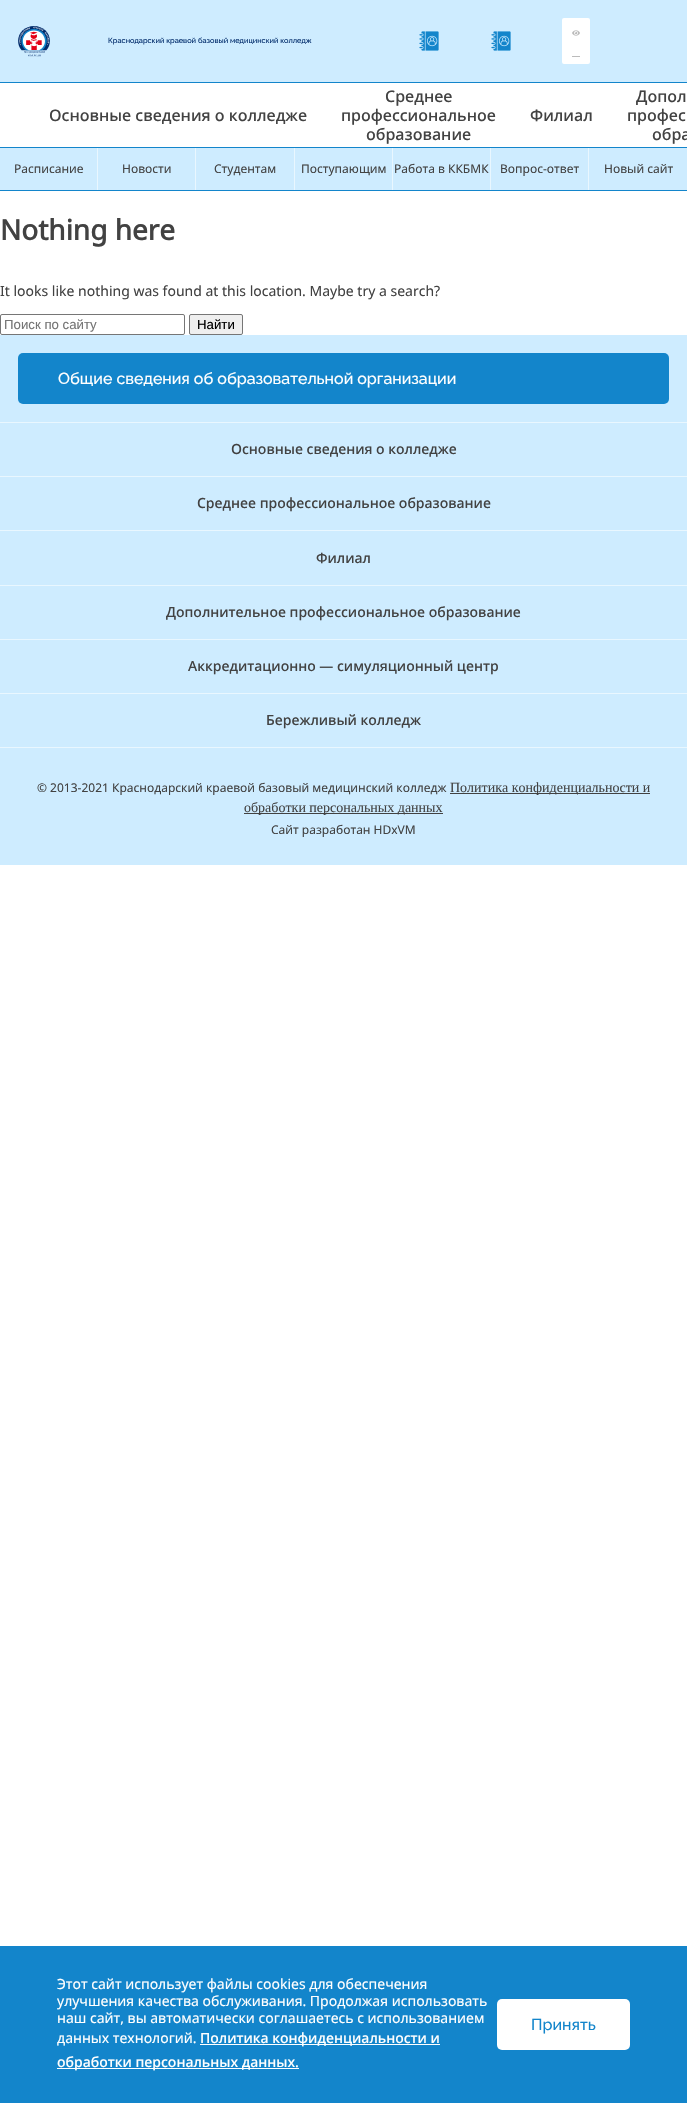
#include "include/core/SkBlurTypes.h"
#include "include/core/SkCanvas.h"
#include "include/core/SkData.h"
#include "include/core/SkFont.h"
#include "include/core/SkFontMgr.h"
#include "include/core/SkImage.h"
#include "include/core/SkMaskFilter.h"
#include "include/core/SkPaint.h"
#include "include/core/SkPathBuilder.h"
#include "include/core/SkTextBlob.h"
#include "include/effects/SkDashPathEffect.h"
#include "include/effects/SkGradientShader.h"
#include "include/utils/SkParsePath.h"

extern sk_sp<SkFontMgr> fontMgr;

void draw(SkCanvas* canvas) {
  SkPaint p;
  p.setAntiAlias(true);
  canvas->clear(SK_ColorWHITE);
  p.setColor(SkColorSetRGB(206, 236, 255));
  canvas->drawRect(SkRect::MakeLTRB(0, 0, 687, 82), p);
  p.setColor(SkColorSetRGB(19, 133, 203));
  canvas->drawRect(SkRect::MakeLTRB(0, 82, 687, 83), p);
  canvas->drawImageRect(SkImages::DeferredFromEncodedData(SkData::MakeFromFileName("images/1.png")), SkRect::MakeLTRB(18, 26, 50, 57), SkSamplingOptions());
  canvas->drawImageRect(SkImages::DeferredFromEncodedData(SkData::MakeFromFileName("images/2.png")), SkRect::MakeLTRB(419, 31, 439, 51), SkSamplingOptions());
  canvas->drawImageRect(SkImages::DeferredFromEncodedData(SkData::MakeFromFileName("images/2.png")), SkRect::MakeLTRB(491, 31, 511, 51), SkSamplingOptions());
  p.setColor(SK_ColorWHITE);
  canvas->drawRoundRect(SkRect::MakeLTRB(562, 18, 590, 64), 2, 2, p);
  canvas->drawImageRect(SkImages::DeferredFromEncodedData(SkData::MakeFromFileName("images/3.png")), SkRect::MakeLTRB(572, 30, 580, 36), SkSamplingOptions());
  p.setColor(SkColorSetRGB(187, 187, 187));
  canvas->drawRect(SkRect::MakeLTRB(572, 56, 580, 57), p);
  p.setColor(SkColorSetRGB(206, 236, 255));
  canvas->drawRect(SkRect::MakeLTRB(0, 148, 687, 190), p);
  p.setColor(SkColorSetRGB(19, 133, 203));
  canvas->drawRect(SkRect::MakeLTRB(0, 147, 687, 148), p);
  canvas->drawRect(SkRect::MakeLTRB(0, 190, 687, 191), p);
  p.setColor(SkColorSetRGB(233, 247, 255));
  canvas->drawRect(SkRect::MakeLTRB(97, 148, 98, 190), p);
  canvas->drawRect(SkRect::MakeLTRB(195, 148, 196, 190), p);
  canvas->drawRect(SkRect::MakeLTRB(294, 148, 295, 190), p);
  canvas->drawRect(SkRect::MakeLTRB(392, 148, 393, 190), p);
  canvas->drawRect(SkRect::MakeLTRB(490, 148, 491, 190), p);
  canvas->drawRect(SkRect::MakeLTRB(588, 148, 589, 190), p);
  p.setStyle(SkPaint::kStroke_Style);
  p.setStrokeWidth(1);
  p.setColor(SkColorSetRGB(118, 118, 118));
  canvas->drawRoundRect(SkRect::MakeLTRB(0.5f, 314.5f, 184.5f, 334.5f), 1.5f, 1.5f, p);
  p.setStyle(SkPaint::kFill_Style);
  p.setColor(SkColorSetRGB(239, 239, 239));
  canvas->drawRoundRect(SkRect::MakeLTRB(189.5f, 314.5f, 242.5f, 334.5f), 1.5f, 1.5f, p);
  p.setStyle(SkPaint::kStroke_Style);
  p.setColor(SkColorSetRGB(118, 118, 118));
  canvas->drawRoundRect(SkRect::MakeLTRB(189.5f, 314.5f, 242.5f, 334.5f), 1.5f, 1.5f, p);
  p.setStyle(SkPaint::kFill_Style);
  p.setColor(SkColorSetRGB(206, 236, 255));
  canvas->drawRect(SkRect::MakeLTRB(0, 335, 687, 865), p);
  p.setColor(SkColorSetRGB(19, 133, 203));
  canvas->drawRoundRect(SkRect::MakeLTRB(18, 353, 669, 404), 5, 5, p);
  p.setColor(SkColorSetRGB(233, 247, 255));
  canvas->drawRect(SkRect::MakeLTRB(0, 422, 687, 423), p);
  canvas->drawRect(SkRect::MakeLTRB(0, 476, 687, 477), p);
  canvas->drawRect(SkRect::MakeLTRB(0, 530, 687, 531), p);
  canvas->drawRect(SkRect::MakeLTRB(0, 585, 687, 586), p);
  canvas->drawRect(SkRect::MakeLTRB(0, 639, 687, 640), p);
  canvas->drawRect(SkRect::MakeLTRB(0, 693, 687, 694), p);
  canvas->drawRect(SkRect::MakeLTRB(0, 747, 687, 748), p);
  p.setColor(SkColorSetRGB(66, 66, 66));
  canvas->drawRect(SkRect::MakeLTRB(450, 793, 650, 794), p);
  canvas->drawRect(SkRect::MakeLTRB(244, 813, 443, 814), p);
  p.setColor(SkColorSetRGB(19, 133, 203));
  canvas->drawRect(SkRect::MakeLTRB(0, 1946, 687, 2103), p);
  p.setColor(SK_ColorWHITE);
  canvas->drawRect(SkRect::MakeLTRB(200, 2044, 440, 2045), p);
  canvas->drawRect(SkRect::MakeLTRB(57, 2068, 299, 2069), p);
  canvas->drawRoundRect(SkRect::MakeLTRB(497, 1999, 630, 2050), 5, 5, p);
  SkFont font1(fontMgr->matchFamilyStyle("Raleway", SkFontStyle(500, SkFontStyle::kNormal_Width, SkFontStyle::kUpright_Slant)), 7.4f);
  font1.setSubpixel(true);
  p.setColor(SkColorSetRGB(0, 43, 107));
  canvas->drawString("Краснодарский краевой базовый медицинский колледж", 108, 43, font1, p);
  SkFont font2(fontMgr->matchFamilyStyle("Noto Sans", SkFontStyle(500, SkFontStyle::kNormal_Width, SkFontStyle::kUpright_Slant)), 16);
  font2.setSubpixel(true);
  p.setColor(SkColorSetRGB(66, 66, 66));
  canvas->drawString("Основные сведения о колледже", 49, 121, font2, p);
  canvas->drawString("Среднее", 385, 102, font2, p);
  canvas->drawString("профессиональное", 341, 121, font2, p);
  canvas->drawString("образование", 366, 140, font2, p);
  canvas->drawString("Филиал", 530, 121, font2, p);
  canvas->drawString("Допол", 636, 102, font2, p);
  canvas->drawString("профес", 627, 121, font2, p);
  canvas->drawString("обра", 652, 140, font2, p);
  SkFont font3(fontMgr->matchFamilyStyle("Noto Sans", SkFontStyle::Normal()), 12);
  font3.setSubpixel(true);
  canvas->drawString("Расписание", 14, 173, font3, p);
  canvas->drawString("Новости", 122, 173, font3, p);
  canvas->drawString("Студентам", 214, 173, font3, p);
  canvas->drawString("Поступающим", 301, 173, font3, p);
  canvas->drawString("Работа в ККБМК", 394, 173, font3, p);
  canvas->drawString("Вопрос-ответ", 500, 173, font3, p);
  canvas->drawString("Новый сайт", 604, 173, font3, p);
  SkFont font4(fontMgr->matchFamilyStyle("Noto Sans", SkFontStyle::Bold()), 28);
  font4.setSubpixel(true);
  canvas->drawString("Nothing here", 0, 240, font4, p);
  SkFont font5(fontMgr->matchFamilyStyle("Noto Sans", SkFontStyle::Normal()), 14);
  font5.setSubpixel(true);
  canvas->drawString("It looks like nothing was found at this location. Maybe try a search?", 0, 296, font5, p);
  SkFont font6(fontMgr->matchFamilyStyle("Liberation Sans", SkFontStyle::Normal()), 13.25f);
  font6.setSubpixel(true);
  p.setColor(SkColorSetRGB(117, 117, 117));
  canvas->drawString("Поиск по сайту", 4, 329, font6, p);
  p.setColor(SK_ColorBLACK);
  canvas->drawString("Найти", 197, 329, font6, p);
  SkFont font7(fontMgr->matchFamilyStyle("Raleway", SkFontStyle(500, SkFontStyle::kNormal_Width, SkFontStyle::kUpright_Slant)), 16);
  font7.setSubpixel(true);
  p.setColor(SK_ColorWHITE);
  canvas->drawString("Общие сведения об образовательной организации", 58, 384, font7, p);
  SkFont font8(fontMgr->matchFamilyStyle("Noto Sans", SkFontStyle(500, SkFontStyle::kNormal_Width, SkFontStyle::kUpright_Slant)), 14);
  font8.setSubpixel(true);
  p.setColor(SkColorSetRGB(66, 66, 66));
  canvas->drawString("Основные сведения о колледже", 231, 454, font8, p);
  canvas->drawString("Среднее профессиональное образование", 197, 508, font8, p);
  canvas->drawString("Филиал", 316, 563, font8, p);
  canvas->drawString("Дополнительное профессиональное образование", 166, 617, font8, p);
  canvas->drawString("Аккредитационно — симуляционный центр", 188, 671, font8, p);
  canvas->drawString("Бережливый колледж", 266, 725, font8, p);
  canvas->drawString("© 2013-2021 Краснодарский краевой базовый медицинский колледж", 37, 792, font3, p);
  SkFont font9(fontMgr->matchFamilyStyle("Liberation Serif", SkFontStyle::Normal()), 14);
  font9.setSubpixel(true);
  canvas->drawString("Политика конфиденциальности и", 450, 792, font9, p);
  canvas->drawString("обработки персональных данных", 244, 812, font9, p);
  canvas->drawString("Сайт разработан HDxVM", 271, 834, font3, p);
  p.setColor(SK_ColorWHITE);
  canvas->drawString("Этот сайт использует файлы cookies для обеспечения", 57, 1989, font5, p);
  canvas->drawString("улучшения качества обслуживания. Продолжая использовать", 57, 2006, font5, p);
  canvas->drawString("наш сайт, вы автоматически соглашаетесь с использованием", 57, 2023, font5, p);
  canvas->drawString("данных технологий.", 57, 2043, font5, p);
  canvas->drawString("Политика конфиденциальности и", 200, 2043, font8, p);
  canvas->drawString("обработки персональных данных.", 57, 2067, font8, p);
  p.setColor(SkColorSetRGB(19, 133, 203));
  canvas->drawString("Принять", 531, 2030, font7, p);
}
